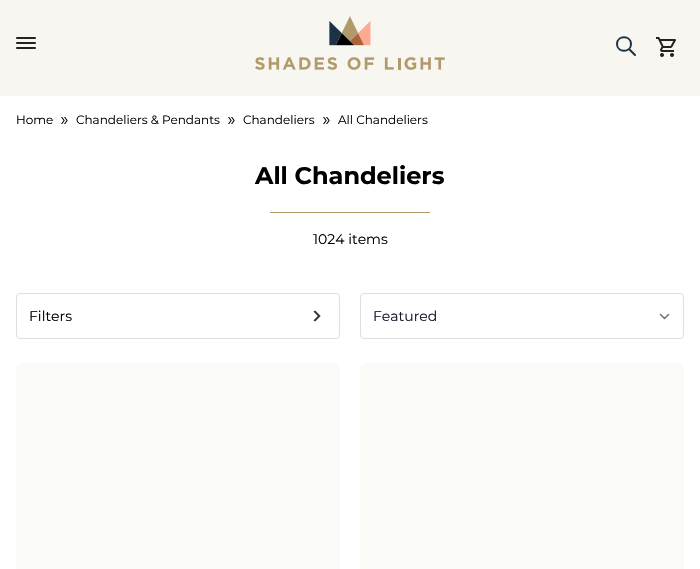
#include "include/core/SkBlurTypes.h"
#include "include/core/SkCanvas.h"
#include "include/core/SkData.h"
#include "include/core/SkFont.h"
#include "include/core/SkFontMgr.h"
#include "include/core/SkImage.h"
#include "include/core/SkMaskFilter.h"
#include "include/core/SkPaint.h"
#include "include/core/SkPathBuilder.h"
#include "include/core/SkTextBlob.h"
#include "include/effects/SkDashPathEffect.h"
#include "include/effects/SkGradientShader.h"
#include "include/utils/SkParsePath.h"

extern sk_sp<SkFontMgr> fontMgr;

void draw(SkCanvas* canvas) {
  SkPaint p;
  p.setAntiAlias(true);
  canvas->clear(SK_ColorWHITE);
  p.setColor(SkColorSetRGB(247, 246, 240));
  canvas->drawRect(SkRect::MakeLTRB(0, 0, 700, 96), p);
  canvas->drawImageRect(SkImages::DeferredFromEncodedData(SkData::MakeFromFileName("images/1.png")), SkRect::MakeLTRB(16, 37, 36, 49), SkSamplingOptions());
  canvas->drawImageRect(SkImages::DeferredFromEncodedData(SkData::MakeFromFileName("images/2.png")), SkRect::MakeLTRB(255, 16, 445, 70), SkSamplingOptions());
  p.setStyle(SkPaint::kStroke_Style);
  p.setStrokeWidth(2);
  p.setStrokeCap(SkPaint::kRound_Cap);
  p.setStrokeJoin(SkPaint::kRound_Join);
  p.setColor(SkColorSetRGB(27, 49, 68));
  canvas->drawPath(SkPathBuilder().moveTo(635, 55).lineTo(629, 49).moveTo(631, 44).cubicTo(631, 53, 617, 53, 617, 44).cubicTo(617, 35, 631, 35, 631, 44).close().detach(), p);
  canvas->drawImageRect(SkImages::DeferredFromEncodedData(SkData::MakeFromFileName("images/3.png")), SkRect::MakeLTRB(656, 37, 676, 57), SkSamplingOptions());
  canvas->drawImageRect(SkImages::DeferredFromEncodedData(SkData::MakeFromFileName("images/4.png")), SkRect::MakeLTRB(61, 117, 68, 124), SkSamplingOptions());
  canvas->drawImageRect(SkImages::DeferredFromEncodedData(SkData::MakeFromFileName("images/4.png")), SkRect::MakeLTRB(228, 117, 235, 124), SkSamplingOptions());
  canvas->drawImageRect(SkImages::DeferredFromEncodedData(SkData::MakeFromFileName("images/4.png")), SkRect::MakeLTRB(323, 117, 330, 124), SkSamplingOptions());
  p.setStyle(SkPaint::kFill_Style);
  p.setColor(SkColorSetRGB(177, 154, 106));
  canvas->drawRect(SkRect::MakeLTRB(270, 212, 430, 213), p);
  p.setStyle(SkPaint::kStroke_Style);
  p.setStrokeWidth(1);
  p.setStrokeCap(SkPaint::kButt_Cap);
  p.setStrokeJoin(SkPaint::kMiter_Join);
  p.setColor(SkColorSetRGB(223, 223, 223));
  canvas->drawRoundRect(SkRect::MakeLTRB(16.5f, 293.5f, 339.5f, 338.5f), 3.5f, 3.5f, p);
  canvas->drawImageRect(SkImages::DeferredFromEncodedData(SkData::MakeFromFileName("images/5.png")), SkRect::MakeLTRB(313, 310, 321, 322), SkSamplingOptions());
  p.setStrokeWidth(1.6f);
  p.setStrokeCap(SkPaint::kRound_Cap);
  p.setStrokeJoin(SkPaint::kRound_Join);
  p.setColor(SkColorSetRGB(107, 114, 128));
  canvas->drawPath(SkPathBuilder().moveTo(660.5f, 314.5f).lineTo(664.5f, 318.5f).lineTo(668.5f, 314.5f).detach(), p);
  p.setStrokeWidth(1);
  p.setStrokeCap(SkPaint::kButt_Cap);
  p.setStrokeJoin(SkPaint::kMiter_Join);
  p.setColor(SkColorSetRGB(223, 223, 223));
  canvas->drawRoundRect(SkRect::MakeLTRB(360.5f, 293.5f, 683.5f, 338.5f), 3.5f, 3.5f, p);
  p.setStyle(SkPaint::kFill_Style);
  p.setColor(SkColorSetRGB(250, 250, 246));
  canvas->drawRoundRect(SkRect::MakeLTRB(16, 363, 340, 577), 8, 8, p);
  canvas->drawRoundRect(SkRect::MakeLTRB(360, 363, 684, 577), 8, 8, p);
  SkFont font1(fontMgr->matchFamilyStyle("Montserrat", SkFontStyle::Normal()), 12);
  font1.setSubpixel(true);
  p.setColor(SK_ColorBLACK);
  canvas->drawString("Home", 16, 124, font1, p);
  canvas->drawString("Chandeliers & Pendants", 76, 124, font1, p);
  canvas->drawString("Chandeliers", 243, 124, font1, p);
  canvas->drawString("All Chandeliers", 338, 124, font1, p);
  SkFont font2(fontMgr->matchFamilyStyle("Montserrat", SkFontStyle::Bold()), 24);
  font2.setSubpixel(true);
  canvas->drawString("All Chandeliers", 255, 184, font2, p);
  SkFont font3(fontMgr->matchFamilyStyle("Montserrat", SkFontStyle::Normal()), 14);
  font3.setSubpixel(true);
  canvas->drawString("1024 items", 313, 244, font3, p);
  canvas->drawString("Filters", 29, 321, font3, p);
  p.setColor(SkColorSetRGB(17, 24, 39));
  canvas->drawString("Featured", 373, 321, font3, p);
}
